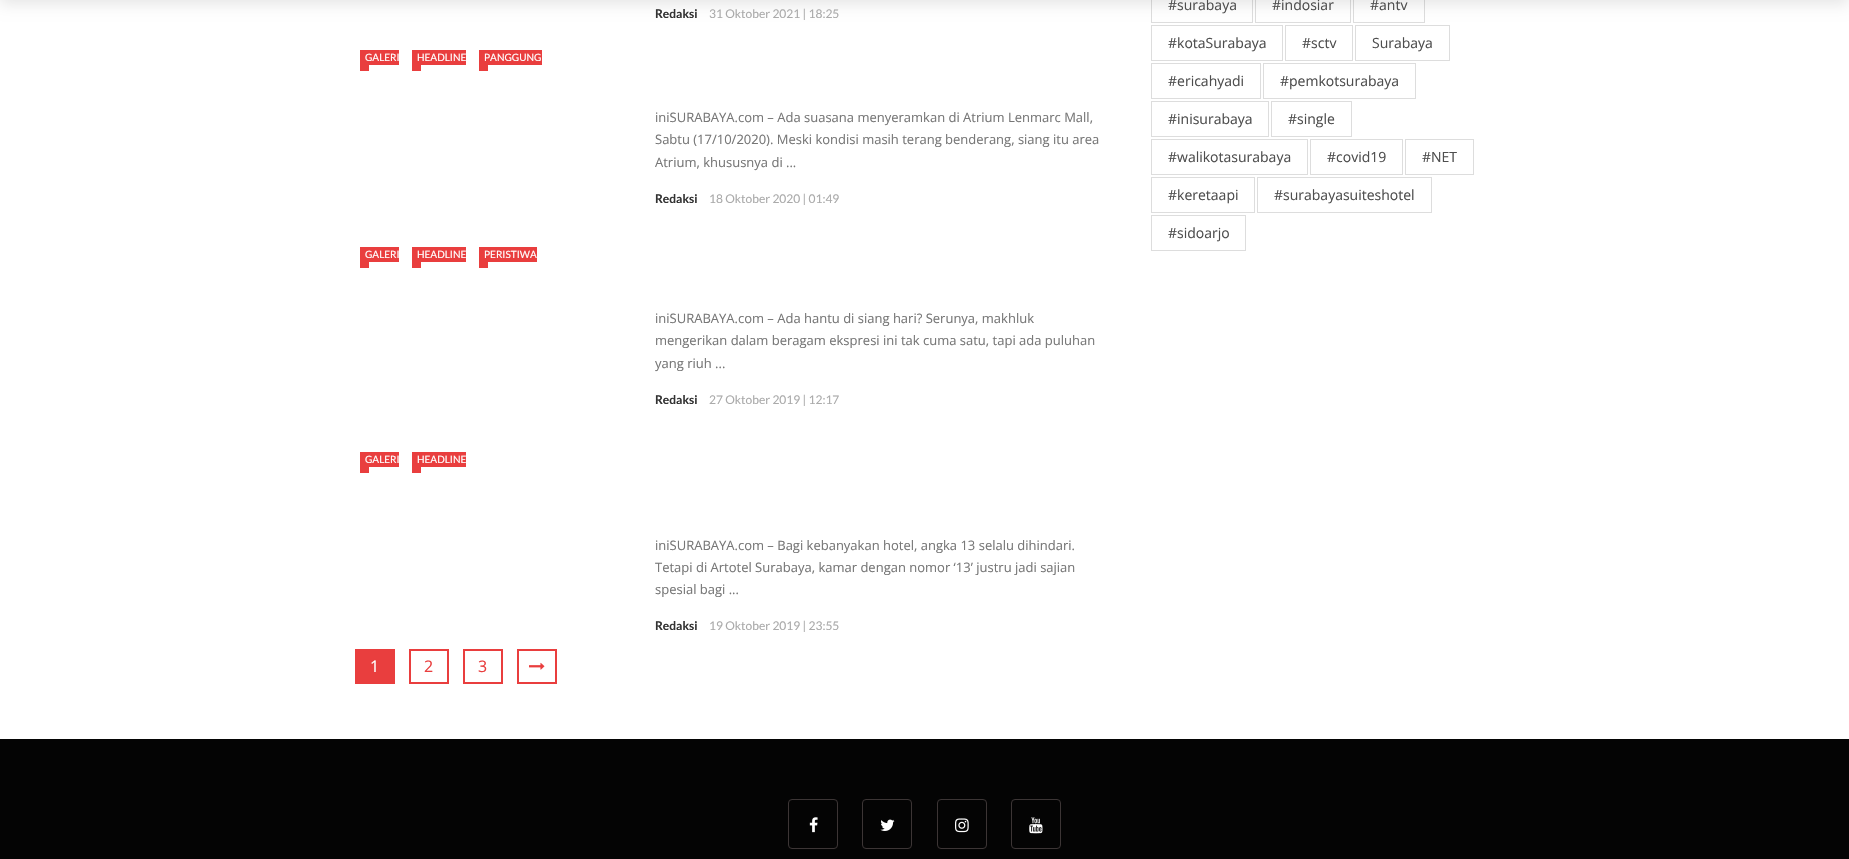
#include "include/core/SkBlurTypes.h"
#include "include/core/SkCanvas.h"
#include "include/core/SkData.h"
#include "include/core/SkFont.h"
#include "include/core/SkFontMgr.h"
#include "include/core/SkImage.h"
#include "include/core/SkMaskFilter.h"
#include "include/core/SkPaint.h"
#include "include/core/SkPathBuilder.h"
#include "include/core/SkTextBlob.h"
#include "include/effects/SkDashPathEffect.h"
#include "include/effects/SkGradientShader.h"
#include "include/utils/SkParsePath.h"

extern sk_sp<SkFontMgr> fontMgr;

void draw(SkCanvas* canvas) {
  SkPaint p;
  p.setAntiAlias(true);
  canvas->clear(SK_ColorWHITE);
  p.setStyle(SkPaint::kStroke_Style);
  p.setStrokeWidth(1);
  p.setColor(SkColorSetRGB(221, 221, 221));
  canvas->drawRect(SkRect::MakeLTRB(1151.5f, -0.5f, 1252.5f, 22.5f), p);
  canvas->drawRect(SkRect::MakeLTRB(1255.5f, -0.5f, 1350.5f, 22.5f), p);
  canvas->drawRect(SkRect::MakeLTRB(1353.5f, -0.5f, 1424.5f, 22.5f), p);
  canvas->drawRect(SkRect::MakeLTRB(1151.5f, 25.5f, 1282.5f, 60.5f), p);
  canvas->drawRect(SkRect::MakeLTRB(1285.5f, 25.5f, 1352.5f, 60.5f), p);
  canvas->drawRect(SkRect::MakeLTRB(1355.5f, 25.5f, 1449.5f, 60.5f), p);
  p.setStyle(SkPaint::kFill_Style);
  p.setColor(SkColorSetARGB(26, 0, 0, 0));
  p.setMaskFilter(SkMaskFilter::MakeBlur(kNormal_SkBlurStyle, 7.5f));
  canvas->drawRect(SkRect::MakeLTRB(0, -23, 1849, 4), p);
  p.setMaskFilter(nullptr);
  p.setColor(SkColorSetRGB(233, 62, 62));
  canvas->drawRect(SkRect::MakeLTRB(360, 50, 399, 65), p);
  canvas->drawRect(SkRect::MakeLTRB(360, 65, 369, 71), p);
  canvas->drawRect(SkRect::MakeLTRB(412, 50, 466, 65), p);
  canvas->drawRect(SkRect::MakeLTRB(412, 65, 421, 71), p);
  canvas->drawRect(SkRect::MakeLTRB(479, 50, 542, 65), p);
  canvas->drawRect(SkRect::MakeLTRB(479, 65, 488, 71), p);
  canvas->drawRect(SkRect::MakeLTRB(360, 247, 399, 262), p);
  canvas->drawRect(SkRect::MakeLTRB(360, 262, 369, 268), p);
  canvas->drawRect(SkRect::MakeLTRB(412, 247, 466, 262), p);
  canvas->drawRect(SkRect::MakeLTRB(412, 262, 421, 268), p);
  canvas->drawRect(SkRect::MakeLTRB(479, 247, 537, 262), p);
  canvas->drawRect(SkRect::MakeLTRB(479, 262, 488, 268), p);
  canvas->drawRect(SkRect::MakeLTRB(360, 452, 399, 467), p);
  canvas->drawRect(SkRect::MakeLTRB(360, 467, 369, 473), p);
  canvas->drawRect(SkRect::MakeLTRB(412, 452, 466, 467), p);
  canvas->drawRect(SkRect::MakeLTRB(412, 467, 421, 473), p);
  canvas->drawRect(SkRect::MakeLTRB(355, 649, 395, 684), p);
  p.setStyle(SkPaint::kStroke_Style);
  p.setStrokeWidth(2);
  canvas->drawRect(SkRect::MakeLTRB(410, 650, 448, 683), p);
  canvas->drawRect(SkRect::MakeLTRB(464, 650, 502, 683), p);
  canvas->drawRect(SkRect::MakeLTRB(518, 650, 556, 683), p);
  canvas->drawImageRect(SkImages::DeferredFromEncodedData(SkData::MakeFromFileName("images/1.png")), SkRect::MakeLTRB(529, 662, 545, 670), SkSamplingOptions());
  p.setStrokeWidth(1);
  p.setColor(SkColorSetRGB(221, 221, 221));
  canvas->drawRect(SkRect::MakeLTRB(1151.5f, 63.5f, 1260.5f, 98.5f), p);
  canvas->drawRect(SkRect::MakeLTRB(1263.5f, 63.5f, 1415.5f, 98.5f), p);
  canvas->drawRect(SkRect::MakeLTRB(1151.5f, 101.5f, 1268.5f, 136.5f), p);
  canvas->drawRect(SkRect::MakeLTRB(1271.5f, 101.5f, 1351.5f, 136.5f), p);
  canvas->drawRect(SkRect::MakeLTRB(1151.5f, 139.5f, 1307.5f, 174.5f), p);
  canvas->drawRect(SkRect::MakeLTRB(1310.5f, 139.5f, 1402.5f, 174.5f), p);
  canvas->drawRect(SkRect::MakeLTRB(1405.5f, 139.5f, 1473.5f, 174.5f), p);
  canvas->drawRect(SkRect::MakeLTRB(1151.5f, 177.5f, 1254.5f, 212.5f), p);
  canvas->drawRect(SkRect::MakeLTRB(1257.5f, 177.5f, 1431.5f, 212.5f), p);
  canvas->drawRect(SkRect::MakeLTRB(1151.5f, 215.5f, 1245.5f, 250.5f), p);
  p.setStyle(SkPaint::kFill_Style);
  p.setColor(SkColorSetRGB(4, 4, 4));
  canvas->drawRect(SkRect::MakeLTRB(0, 739, 1849, 859), p);
  p.setStyle(SkPaint::kStroke_Style);
  p.setColor(SkColorSetRGB(60, 53, 53));
  canvas->drawRoundRect(SkRect::MakeLTRB(788.5f, 799.5f, 837.5f, 848.5f), 3.5f, 3.5f, p);
  canvas->drawImageRect(SkImages::DeferredFromEncodedData(SkData::MakeFromFileName("images/2.png")), SkRect::MakeLTRB(809, 817, 818, 833), SkSamplingOptions());
  canvas->drawRoundRect(SkRect::MakeLTRB(862.5f, 799.5f, 911.5f, 848.5f), 3.5f, 3.5f, p);
  canvas->drawImageRect(SkImages::DeferredFromEncodedData(SkData::MakeFromFileName("images/3.png")), SkRect::MakeLTRB(880, 819, 895, 831), SkSamplingOptions());
  canvas->drawRoundRect(SkRect::MakeLTRB(937.5f, 799.5f, 986.5f, 848.5f), 3.5f, 3.5f, p);
  canvas->drawImageRect(SkImages::DeferredFromEncodedData(SkData::MakeFromFileName("images/4.png")), SkRect::MakeLTRB(955, 818, 969, 833), SkSamplingOptions());
  canvas->drawRoundRect(SkRect::MakeLTRB(1011.5f, 799.5f, 1060.5f, 848.5f), 3.5f, 3.5f, p);
  canvas->drawImageRect(SkImages::DeferredFromEncodedData(SkData::MakeFromFileName("images/5.png")), SkRect::MakeLTRB(1029, 817, 1043, 834), SkSamplingOptions());
  SkFont font1(fontMgr->matchFamilyStyle("Lato", SkFontStyle::Bold()), 12);
  font1.setSubpixel(true);
  p.setStyle(SkPaint::kFill_Style);
  p.setColor(SkColorSetRGB(51, 51, 51));
  canvas->drawString("Redaksi", 655, 18, font1, p);
  SkFont font2(fontMgr->matchFamilyStyle("Lato", SkFontStyle::Normal()), 12);
  font2.setSubpixel(true);
  p.setColor(SkColorSetRGB(170, 170, 170));
  canvas->drawString("31 Oktober 2021 | 18:25", 709, 18, font2, p);
  SkFont font3(fontMgr->matchFamilyStyle("Lato", SkFontStyle::Normal()), 10);
  font3.setSubpixel(true);
  p.setColor(SK_ColorWHITE);
  canvas->drawString("GALERI", 365, 61, font3, p);
  canvas->drawString("HEADLINE", 417, 61, font3, p);
  canvas->drawString("PANGGUNG", 484, 61, font3, p);
  SkFont font4(fontMgr->matchFamilyStyle("Open Sans", SkFontStyle::Normal()), 13);
  font4.setSubpixel(true);
  p.setColor(SkColorSetRGB(119, 119, 119));
  canvas->drawString("iniSURABAYA.com – Ada suasana menyeramkan di Atrium Lenmarc Mall,", 655, 122, font4, p);
  canvas->drawString("Sabtu (17/10/2020). Meski kondisi masih terang benderang, siang itu area", 655, 144, font4, p);
  canvas->drawString("Atrium, khususnya di ...", 655, 167, font4, p);
  p.setColor(SkColorSetRGB(51, 51, 51));
  canvas->drawString("Redaksi", 655, 203, font1, p);
  p.setColor(SkColorSetRGB(170, 170, 170));
  canvas->drawString("18 Oktober 2020 | 01:49", 709, 203, font2, p);
  p.setColor(SK_ColorWHITE);
  canvas->drawString("GALERI", 365, 258, font3, p);
  canvas->drawString("HEADLINE", 417, 258, font3, p);
  canvas->drawString("PERISTIWA", 484, 258, font3, p);
  p.setColor(SkColorSetRGB(119, 119, 119));
  canvas->drawString("iniSURABAYA.com – Ada hantu di siang hari? Serunya, makhluk", 655, 323, font4, p);
  canvas->drawString("mengerikan dalam beragam ekspresi ini tak cuma satu, tapi ada puluhan", 655, 345, font4, p);
  canvas->drawString("yang riuh ...", 655, 368, font4, p);
  p.setColor(SkColorSetRGB(51, 51, 51));
  canvas->drawString("Redaksi", 655, 404, font1, p);
  p.setColor(SkColorSetRGB(170, 170, 170));
  canvas->drawString("27 Oktober 2019 | 12:17", 709, 404, font2, p);
  p.setColor(SK_ColorWHITE);
  canvas->drawString("GALERI", 365, 463, font3, p);
  canvas->drawString("HEADLINE", 417, 463, font3, p);
  p.setColor(SkColorSetRGB(119, 119, 119));
  canvas->drawString("iniSURABAYA.com – Bagi kebanyakan hotel, angka 13 selalu dihindari.", 655, 550, font4, p);
  canvas->drawString("Tetapi di Artotel Surabaya, kamar dengan nomor ‘13’ justru jadi sajian", 655, 572, font4, p);
  canvas->drawString("spesial bagi ...", 655, 594, font4, p);
  p.setColor(SkColorSetRGB(51, 51, 51));
  canvas->drawString("Redaksi", 655, 630, font1, p);
  p.setColor(SkColorSetRGB(170, 170, 170));
  canvas->drawString("19 Oktober 2019 | 23:55", 709, 630, font2, p);
  SkFont font5(fontMgr->matchFamilyStyle("Open Sans", SkFontStyle::Normal()), 16);
  font5.setSubpixel(true);
  p.setColor(SK_ColorWHITE);
  canvas->drawString("1", 370, 672, font5, p);
  p.setColor(SkColorSetRGB(233, 62, 62));
  canvas->drawString("2", 424, 672, font5, p);
  canvas->drawString("3", 478, 672, font5, p);
  SkFont font6(fontMgr->matchFamilyStyle("Open Sans", SkFontStyle::Normal()), 14);
  font6.setSubpixel(true);
  p.setColor(SkColorSetRGB(78, 78, 78));
  canvas->drawString("#surabaya", 1168, 10, font6, p);
  canvas->drawString("#indosiar", 1272, 10, font6, p);
  canvas->drawString("#antv", 1370, 10, font6, p);
  canvas->drawString("#kotaSurabaya", 1168, 48, font6, p);
  canvas->drawString("#sctv", 1302, 48, font6, p);
  canvas->drawString("Surabaya", 1372, 48, font6, p);
  canvas->drawString("#ericahyadi", 1168, 86, font6, p);
  canvas->drawString("#pemkotsurabaya", 1280, 86, font6, p);
  canvas->drawString("#inisurabaya", 1168, 124, font6, p);
  canvas->drawString("#single", 1288, 124, font6, p);
  canvas->drawString("#walikotasurabaya", 1168, 162, font6, p);
  canvas->drawString("#covid19", 1327, 162, font6, p);
  canvas->drawString("#NET", 1422, 162, font6, p);
  canvas->drawString("#keretaapi", 1168, 200, font6, p);
  canvas->drawString("#surabayasuiteshotel", 1274, 200, font6, p);
  canvas->drawString("#sidoarjo", 1168, 238, font6, p);
}
